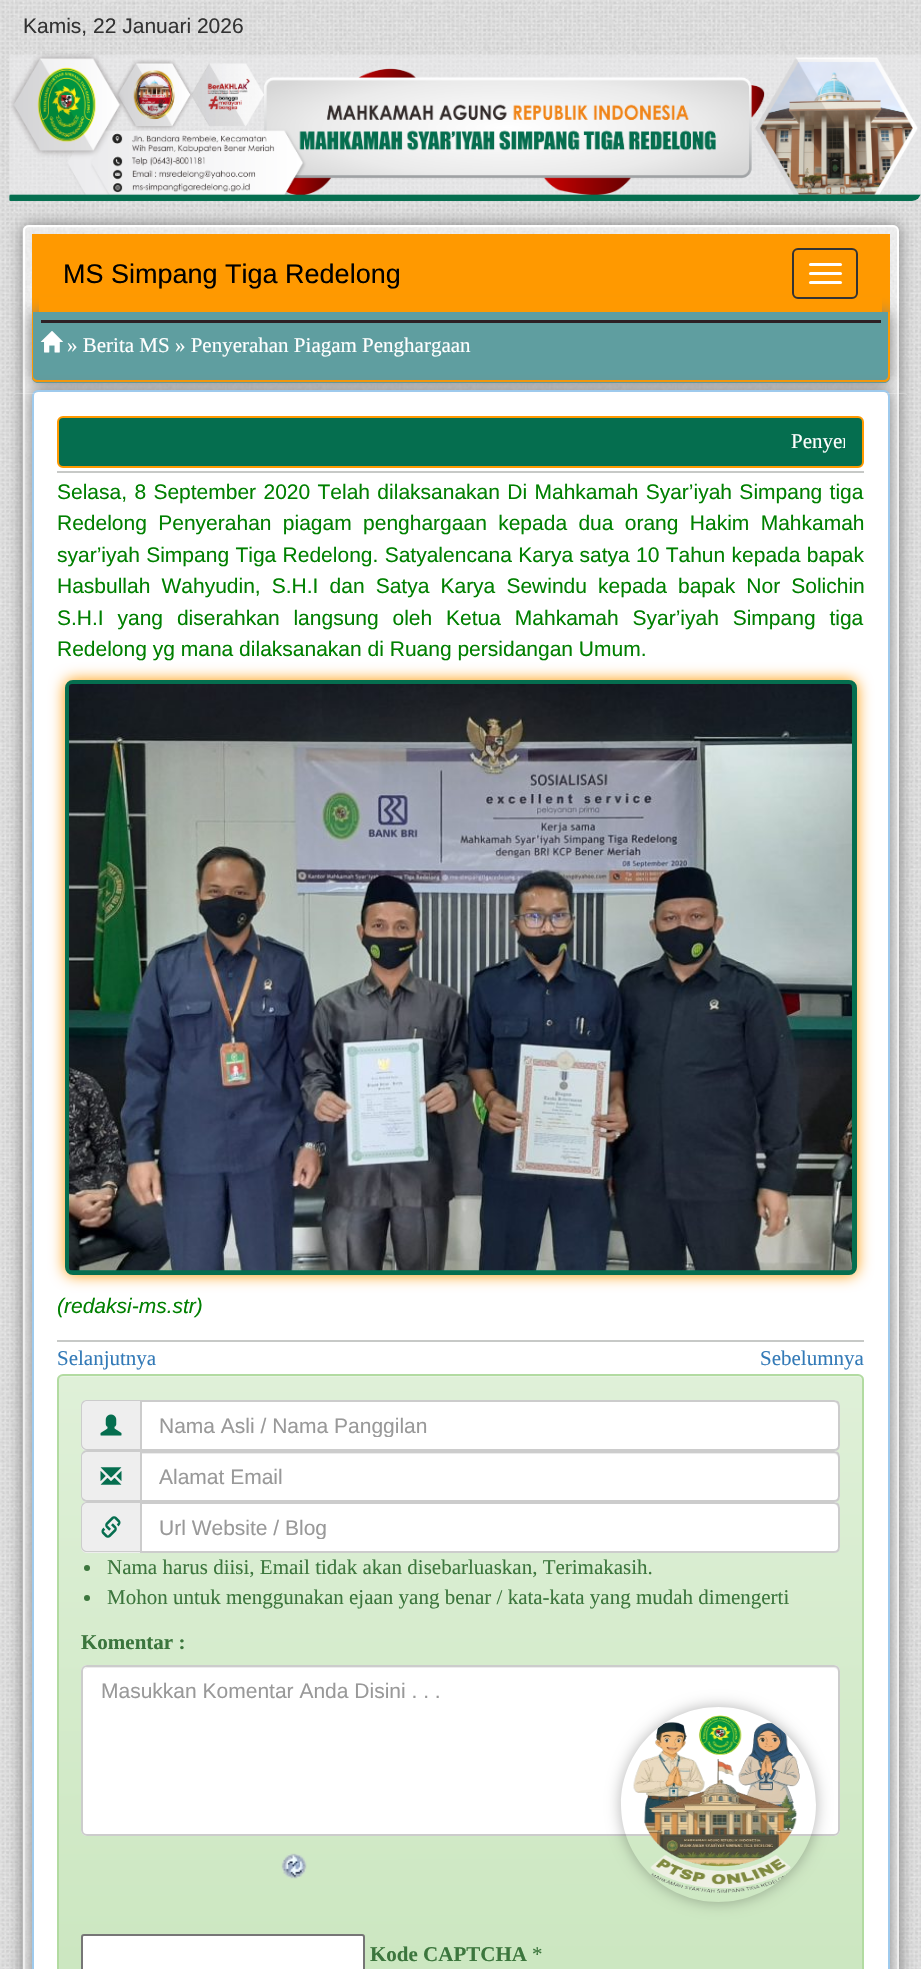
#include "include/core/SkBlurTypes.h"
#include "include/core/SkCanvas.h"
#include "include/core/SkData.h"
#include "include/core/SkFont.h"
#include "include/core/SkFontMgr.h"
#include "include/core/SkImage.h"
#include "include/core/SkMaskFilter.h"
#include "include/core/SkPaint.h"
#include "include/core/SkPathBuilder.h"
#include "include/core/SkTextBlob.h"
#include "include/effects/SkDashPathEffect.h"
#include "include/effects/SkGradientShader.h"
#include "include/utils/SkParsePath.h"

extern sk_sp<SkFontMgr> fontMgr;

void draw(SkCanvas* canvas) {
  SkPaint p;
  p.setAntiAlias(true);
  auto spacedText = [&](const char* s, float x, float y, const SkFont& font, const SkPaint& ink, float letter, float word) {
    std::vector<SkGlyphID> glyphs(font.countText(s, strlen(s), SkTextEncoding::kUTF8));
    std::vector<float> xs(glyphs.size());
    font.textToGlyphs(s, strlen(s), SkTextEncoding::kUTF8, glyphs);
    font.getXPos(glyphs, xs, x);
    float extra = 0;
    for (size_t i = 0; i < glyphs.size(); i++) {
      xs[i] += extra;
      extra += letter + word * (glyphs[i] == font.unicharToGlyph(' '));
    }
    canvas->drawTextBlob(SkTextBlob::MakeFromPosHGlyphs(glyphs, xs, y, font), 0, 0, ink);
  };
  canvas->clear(SK_ColorWHITE);
  canvas->drawImageRect(SkImages::DeferredFromEncodedData(SkData::MakeFromFileName("images/1.png")), SkRect::MakeLTRB(0, 0, 921, 1969), SkSamplingOptions());
  canvas->drawImageRect(SkImages::DeferredFromEncodedData(SkData::MakeFromFileName("images/2.png")), SkRect::MakeLTRB(9, 53, 921, 201), SkSamplingOptions());
  p.setColor(SkColorSetRGB(128, 128, 128));
  p.setMaskFilter(SkMaskFilter::MakeBlur(kNormal_SkBlurStyle, 7.5f));
  canvas->drawRoundRect(SkRect::MakeLTRB(23, 225, 899, 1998), 6, 6, p);
  p.setMaskFilter(nullptr);
  canvas->drawImageRect(SkImages::DeferredFromEncodedData(SkData::MakeFromFileName("images/3.png")), SkRect::MakeLTRB(22, 225, 899, 1969), SkSamplingOptions());
  p.setStyle(SkPaint::kStroke_Style);
  p.setStrokeWidth(2);
  p.setColor(SK_ColorWHITE);
  canvas->drawRoundRect(SkRect::MakeLTRB(24, 226, 898, 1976), 5, 5, p);
  p.setStyle(SkPaint::kFill_Style);
  p.setColor(SkColorSetRGB(255, 153, 0));
  canvas->drawRect(SkRect::MakeLTRB(32, 234, 890, 312), p);
  p.setColor(SkColorSetRGB(128, 128, 128));
  p.setMaskFilter(SkMaskFilter::MakeBlur(kNormal_SkBlurStyle, 7.5f));
  canvas->drawRoundRect(SkRect::MakeLTRB(32, 312, 890, 383), 6, 6, p);
  p.setMaskFilter(nullptr);
  p.setColor(SkColorSetRGB(255, 153, 0));
  canvas->drawRect(SkRect::MakeLTRB(39, 297, 882, 312), p);
  p.setStyle(SkPaint::kStroke_Style);
  p.setColor(SkColorSetRGB(51, 51, 51));
  canvas->drawRoundRect(SkRect::MakeLTRB(793, 249, 857, 298), 5, 5, p);
  p.setStyle(SkPaint::kFill_Style);
  p.setColor(SK_ColorWHITE);
  canvas->drawRoundRect(SkRect::MakeLTRB(809, 263, 842, 266), 1.5f, 1.5f, p);
  canvas->drawRoundRect(SkRect::MakeLTRB(809, 272, 842, 275), 1.5f, 1.5f, p);
  canvas->drawRoundRect(SkRect::MakeLTRB(809, 281, 842, 284), 1.5f, 1.5f, p);
  p.setColor(SkColorSetRGB(95, 158, 160));
  canvas->drawPath(SkPathBuilder().moveTo(32, 312).lineTo(890, 312).lineTo(890, 377).cubicTo(890, 380.5f, 887.5f, 383, 884, 383).lineTo(38, 383).cubicTo(34.5f, 383, 32, 380.5f, 32, 377).close().detach(), p);
  p.setColor(SkColorSetRGB(255, 153, 0));
  canvas->drawPath(SkPathBuilder(SkPathFillType::kEvenOdd).moveTo(32, 312).lineTo(890, 312).lineTo(890, 376).cubicTo(890, 380, 887, 382, 884, 382).lineTo(38, 382).cubicTo(34, 382, 32, 380, 32, 376).close().moveTo(33, 312).lineTo(888, 312).lineTo(888, 376).cubicTo(888, 378, 886, 380, 884, 380).lineTo(38, 380).cubicTo(35, 380, 33, 378, 33, 376).close().detach(), p);
  p.setColor(SkColorSetRGB(45, 32, 37));
  canvas->drawRect(SkRect::MakeLTRB(41, 320, 881, 323), p);
  canvas->drawImageRect(SkImages::DeferredFromEncodedData(SkData::MakeFromFileName("images/4.png")), SkRect::MakeLTRB(40, 331, 63, 353), SkSamplingOptions());
  p.setColor(SkColorSetRGB(128, 128, 128));
  p.setMaskFilter(SkMaskFilter::MakeBlur(kNormal_SkBlurStyle, 7.5f));
  canvas->drawRoundRect(SkRect::MakeLTRB(32, 390, 890, 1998), 6, 6, p);
  p.setMaskFilter(nullptr);
  p.setColor(SK_ColorWHITE);
  canvas->drawPath(SkPathBuilder().moveTo(38, 392).lineTo(884, 392).cubicTo(886, 392, 888, 394, 888, 396).lineTo(888, 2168).cubicTo(888, 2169, 886, 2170, 884, 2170).lineTo(38, 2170).cubicTo(35, 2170, 33, 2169, 33, 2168).lineTo(33, 396).cubicTo(33, 394, 35, 392, 38, 392).close().detach(), p);
  p.setStyle(SkPaint::kStroke_Style);
  p.setColor(SkColorSetRGB(158, 202, 237));
  canvas->drawRoundRect(SkRect::MakeLTRB(33, 391, 889, 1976), 5, 5, p);
  p.setStyle(SkPaint::kFill_Style);
  p.setColor(SkColorSetARGB(64, 255, 255, 255));
  canvas->drawPath(SkPathBuilder().moveTo(16, 394).lineTo(904, 394).cubicTo(907, 394, 909, 397, 909, 399).cubicTo(909, 396, 907, 393, 904, 393).lineTo(17, 393).cubicTo(14, 393, 12, 396, 12, 399).cubicTo(12, 397, 14, 394, 16, 394).close().detach(), p);
  p.setColor(SkColorSetRGB(5, 110, 79));
  canvas->drawRoundRect(SkRect::MakeLTRB(58, 417, 863, 467), 5, 5, p);
  p.setStyle(SkPaint::kStroke_Style);
  p.setColor(SkColorSetRGB(255, 153, 0));
  canvas->drawRoundRect(SkRect::MakeLTRB(58, 417, 863, 467), 5, 5, p);
  p.setStyle(SkPaint::kFill_Style);
  p.setColor(SkColorSetRGB(199, 201, 199));
  canvas->drawRect(SkRect::MakeLTRB(57, 471, 864, 473), p);
  p.setColor(SkColorSetRGB(255, 153, 0));
  p.setMaskFilter(SkMaskFilter::MakeBlur(kNormal_SkBlurStyle, 7.5f));
  canvas->drawRoundRect(SkRect::MakeLTRB(65, 680, 857, 1275), 8, 8, p);
  p.setMaskFilter(nullptr);
  p.setStyle(SkPaint::kStroke_Style);
  p.setStrokeWidth(5);
  p.setColor(SkColorSetRGB(5, 110, 79));
  canvas->drawRoundRect(SkRect::MakeLTRB(67.5f, 682.5f, 854.5f, 1272.5f), 5.5f, 5.5f, p);
  canvas->drawImageRect(SkImages::DeferredFromEncodedData(SkData::MakeFromFileName("images/5.png")), SkRect::MakeLTRB(69, 684, 852, 1271), SkSamplingOptions());
  p.setStyle(SkPaint::kFill_Style);
  p.setColor(SkColorSetRGB(199, 201, 199));
  canvas->drawRect(SkRect::MakeLTRB(57, 1340, 864, 1342), p);
  canvas->save();
  canvas->clipPath(SkPathBuilder().moveTo(63, 1374).lineTo(858, 1374).cubicTo(861.5f, 1374, 864, 1376.5f, 864, 1380).lineTo(864, 2081).cubicTo(864, 2084.5f, 861.5f, 2087, 858, 2087).lineTo(63, 2087).cubicTo(59.5f, 2087, 57, 2084.5f, 57, 2081).lineTo(57, 1380).cubicTo(57, 1376.5f, 59.5f, 1374, 63, 1374).close().detach(), true);
  {
    const SkColor colors[] = {SkColorSetRGB(223, 240, 216), SkColorSetRGB(200, 229, 188)};
    const float stops[] = {0, 1};
    const SkPoint ends[] = {{460, 1376}, {461, 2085}};
    p.setShader(SkGradientShader::MakeLinear(ends, colors, stops, 2, SkTileMode::kClamp));
    p.setAlpha(255);
  }
  canvas->drawRect(SkRect::MakeLTRB(57, 1376, 864, 1969), p);
  canvas->restore();
  p.setShader(nullptr);
  p.setColor(SkColorSetARGB(64, 255, 255, 255));
  canvas->drawPath(SkPathBuilder().moveTo(63, 1377).lineTo(858, 1377).cubicTo(860, 1377, 862, 1379, 862, 1382).lineTo(862, 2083).cubicTo(863, 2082, 863, 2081, 863, 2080).lineTo(863, 1381).cubicTo(863, 1378, 861, 1376, 858, 1376).lineTo(64, 1376).cubicTo(62, 1376, 61, 1377, 60, 1378).close().detach(), p);
  p.setStyle(SkPaint::kStroke_Style);
  p.setStrokeWidth(2);
  p.setColor(SkColorSetRGB(178, 219, 161));
  canvas->drawRoundRect(SkRect::MakeLTRB(58, 1375, 863, 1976), 5, 5, p);
  p.setStyle(SkPaint::kFill_Style);
  p.setColor(SkColorSetRGB(238, 238, 238));
  canvas->drawPath(SkPathBuilder().moveTo(87, 1400).lineTo(140, 1400).lineTo(140, 1451).lineTo(87, 1451).cubicTo(83.5f, 1451, 81, 1448.5f, 81, 1445).lineTo(81, 1406).cubicTo(81, 1402.5f, 83.5f, 1400, 87, 1400).close().detach(), p);
  p.setColor(SkColorSetRGB(204, 204, 204));
  canvas->drawPath(SkPathBuilder(SkPathFillType::kEvenOdd).moveTo(87, 1400).lineTo(140, 1400).lineTo(140, 1450).lineTo(87, 1450).cubicTo(84, 1450, 81, 1448, 81, 1444).lineTo(81, 1406).cubicTo(81, 1402, 84, 1400, 87, 1400).close().moveTo(87, 1401).lineTo(140, 1401).lineTo(140, 1449).lineTo(87, 1449).cubicTo(85, 1449, 82, 1447, 82, 1444).lineTo(82, 1406).cubicTo(82, 1403, 85, 1401, 87, 1401).close().detach(), p);
  canvas->drawImageRect(SkImages::DeferredFromEncodedData(SkData::MakeFromFileName("images/6.png")), SkRect::MakeLTRB(100, 1414, 122, 1436), SkSamplingOptions());
  p.setColor(SK_ColorWHITE);
  canvas->drawPath(SkPathBuilder().moveTo(140, 1400).lineTo(834, 1400).cubicTo(837.5f, 1400, 840, 1402.5f, 840, 1406).lineTo(840, 1445).cubicTo(840, 1448.5f, 837.5f, 1451, 834, 1451).lineTo(140, 1451).close().detach(), p);
  p.setColor(SkColorSetRGB(236, 236, 236));
  canvas->drawPath(SkPathBuilder().moveTo(141, 1402).lineTo(834, 1402).cubicTo(836, 1402, 838, 1405, 838, 1407).lineTo(838, 1447).cubicTo(839, 1446, 839, 1445, 839, 1444).lineTo(839, 1406).cubicTo(839, 1403, 837, 1401, 834, 1401).lineTo(141, 1401).close().detach(), p);
  p.setStyle(SkPaint::kStroke_Style);
  p.setColor(SkColorSetRGB(204, 204, 204));
  canvas->drawPath(SkPathBuilder().moveTo(141, 1401).lineTo(834, 1401).cubicTo(837, 1401, 839, 1403, 839, 1406).lineTo(839, 1445).cubicTo(839, 1448, 837, 1450, 834, 1450).lineTo(141, 1450).close().detach(), p);
  p.setStyle(SkPaint::kFill_Style);
  p.setColor(SkColorSetRGB(238, 238, 238));
  canvas->drawPath(SkPathBuilder().moveTo(87, 1451).lineTo(140, 1451).lineTo(140, 1502).lineTo(87, 1502).cubicTo(83.5f, 1502, 81, 1499.5f, 81, 1496).lineTo(81, 1457).cubicTo(81, 1453.5f, 83.5f, 1451, 87, 1451).close().detach(), p);
  p.setColor(SkColorSetRGB(204, 204, 204));
  canvas->drawPath(SkPathBuilder(SkPathFillType::kEvenOdd).moveTo(87, 1450).lineTo(140, 1450).lineTo(140, 1502).lineTo(87, 1502).cubicTo(84, 1502, 81, 1499, 81, 1496).lineTo(81, 1456).cubicTo(81, 1453, 84, 1450, 87, 1450).close().moveTo(87, 1452).lineTo(140, 1452).lineTo(140, 1500).lineTo(87, 1500).cubicTo(85, 1500, 82, 1498, 82, 1496).lineTo(82, 1456).cubicTo(82, 1454, 85, 1452, 87, 1452).close().detach(), p);
  canvas->drawImageRect(SkImages::DeferredFromEncodedData(SkData::MakeFromFileName("images/7.png")), SkRect::MakeLTRB(100, 1467, 122, 1485), SkSamplingOptions());
  p.setColor(SK_ColorWHITE);
  canvas->drawPath(SkPathBuilder().moveTo(140, 1451).lineTo(834, 1451).cubicTo(837.5f, 1451, 840, 1453.5f, 840, 1457).lineTo(840, 1496).cubicTo(840, 1499.5f, 837.5f, 1502, 834, 1502).lineTo(140, 1502).close().detach(), p);
  p.setColor(SkColorSetRGB(236, 236, 236));
  canvas->drawPath(SkPathBuilder().moveTo(141, 1454).lineTo(834, 1454).cubicTo(836, 1454, 838, 1456, 838, 1458).lineTo(838, 1498).cubicTo(839, 1497, 839, 1496, 839, 1495).lineTo(839, 1457).cubicTo(839, 1454, 837, 1452, 834, 1452).lineTo(141, 1452).close().detach(), p);
  p.setStyle(SkPaint::kStroke_Style);
  p.setColor(SkColorSetRGB(204, 204, 204));
  canvas->drawPath(SkPathBuilder().moveTo(141, 1452).lineTo(834, 1452).cubicTo(837, 1452, 839, 1454, 839, 1457).lineTo(839, 1496).cubicTo(839, 1499, 837, 1501, 834, 1501).lineTo(141, 1501).close().detach(), p);
  p.setStyle(SkPaint::kFill_Style);
  p.setColor(SkColorSetRGB(238, 238, 238));
  canvas->drawPath(SkPathBuilder().moveTo(87, 1502).lineTo(140, 1502).lineTo(140, 1553).lineTo(87, 1553).cubicTo(83.5f, 1553, 81, 1550.5f, 81, 1547).lineTo(81, 1508).cubicTo(81, 1504.5f, 83.5f, 1502, 87, 1502).close().detach(), p);
  p.setColor(SkColorSetRGB(204, 204, 204));
  canvas->drawPath(SkPathBuilder(SkPathFillType::kEvenOdd).moveTo(87, 1502).lineTo(140, 1502).lineTo(140, 1552).lineTo(87, 1552).cubicTo(84, 1552, 81, 1550, 81, 1546).lineTo(81, 1508).cubicTo(81, 1504, 84, 1502, 87, 1502).close().moveTo(87, 1503).lineTo(140, 1503).lineTo(140, 1551).lineTo(87, 1551).cubicTo(85, 1551, 82, 1549, 82, 1546).lineTo(82, 1508).cubicTo(82, 1505, 85, 1503, 87, 1503).close().detach(), p);
  canvas->drawImageRect(SkImages::DeferredFromEncodedData(SkData::MakeFromFileName("images/8.png")), SkRect::MakeLTRB(101, 1516, 121, 1538), SkSamplingOptions());
  p.setColor(SK_ColorWHITE);
  canvas->drawPath(SkPathBuilder().moveTo(140, 1502).lineTo(834, 1502).cubicTo(837.5f, 1502, 840, 1504.5f, 840, 1508).lineTo(840, 1547).cubicTo(840, 1550.5f, 837.5f, 1553, 834, 1553).lineTo(140, 1553).close().detach(), p);
  p.setColor(SkColorSetRGB(236, 236, 236));
  canvas->drawPath(SkPathBuilder().moveTo(141, 1504).lineTo(834, 1504).cubicTo(836, 1504, 838, 1507, 838, 1509).lineTo(838, 1549).cubicTo(839, 1548, 839, 1547, 839, 1546).lineTo(839, 1508).cubicTo(839, 1505, 837, 1503, 834, 1503).lineTo(141, 1503).close().detach(), p);
  p.setStyle(SkPaint::kStroke_Style);
  p.setColor(SkColorSetRGB(204, 204, 204));
  canvas->drawPath(SkPathBuilder().moveTo(141, 1503).lineTo(834, 1503).cubicTo(837, 1503, 839, 1505, 839, 1508).lineTo(839, 1547).cubicTo(839, 1550, 837, 1552, 834, 1552).lineTo(141, 1552).close().detach(), p);
  p.setStyle(SkPaint::kFill_Style);
  p.setColor(SkColorSetRGB(60, 118, 61));
  canvas->drawCircle(87, 1568, 3, p);
  canvas->drawCircle(87, 1598, 3, p);
  p.setColor(SK_ColorWHITE);
  canvas->drawRoundRect(SkRect::MakeLTRB(81, 1665, 840, 1836), 6, 6, p);
  p.setColor(SkColorSetRGB(236, 236, 236));
  canvas->drawPath(SkPathBuilder().moveTo(87, 1668).lineTo(834, 1668).cubicTo(836, 1668, 838, 1670, 838, 1672).lineTo(838, 1833).cubicTo(839, 1832, 839, 1831, 839, 1830).lineTo(839, 1672).cubicTo(839, 1669, 837, 1667, 834, 1667).lineTo(88, 1667).cubicTo(86, 1667, 85, 1668, 84, 1669).close().detach(), p);
  p.setStyle(SkPaint::kStroke_Style);
  p.setColor(SkColorSetRGB(204, 204, 204));
  canvas->drawRoundRect(SkRect::MakeLTRB(82, 1666, 839, 1835), 5, 5, p);
  canvas->drawImageRect(SkImages::DeferredFromEncodedData(SkData::MakeFromFileName("images/9.png")), SkRect::MakeLTRB(281, 1853, 307, 1879), SkSamplingOptions());
  p.setStyle(SkPaint::kFill_Style);
  p.setColor(SK_ColorWHITE);
  canvas->drawRoundRect(SkRect::MakeLTRB(82, 1935, 364, 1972), 2, 2, p);
  p.setStyle(SkPaint::kStroke_Style);
  p.setColor(SkColorSetRGB(118, 118, 118));
  canvas->drawRoundRect(SkRect::MakeLTRB(82, 1935, 364, 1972), 2, 2, p);
  canvas->save();
  canvas->clipPath(SkPathBuilder(SkPathFillType::kEvenOdd).moveTo(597, 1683).lineTo(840, 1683).lineTo(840, 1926).lineTo(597, 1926).close().moveTo(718.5f, 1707).cubicTo(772.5f, 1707, 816, 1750.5f, 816, 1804.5f).cubicTo(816, 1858.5f, 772.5f, 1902, 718.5f, 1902).cubicTo(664.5f, 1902, 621, 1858.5f, 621, 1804.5f).cubicTo(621, 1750.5f, 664.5f, 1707, 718.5f, 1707).close().detach(), true);
  p.setStyle(SkPaint::kFill_Style);
  p.setColor(SkColorSetARGB(77, 0, 0, 0));
  p.setMaskFilter(SkMaskFilter::MakeBlur(kNormal_SkBlurStyle, 7.5f));
  canvas->drawRoundRect(SkRect::MakeLTRB(621, 1707, 816, 1902), 97.5f, 97.5f, p);
  p.setMaskFilter(nullptr);
  canvas->restore();
  canvas->drawImageRect(SkImages::DeferredFromEncodedData(SkData::MakeFromFileName("images/10.png")), SkRect::MakeLTRB(633, 1715, 800, 1893), SkSamplingOptions());
  SkFont font1(fontMgr->matchFamilyStyle("Liberation Sans", SkFontStyle::Normal()), 21);
  font1.setSubpixel(true);
  p.setColor(SkColorSetRGB(51, 51, 51));
  canvas->drawString("Kamis, 22 Januari 2026", 23, 33, font1, p);
  SkFont font2(fontMgr->matchFamilyStyle("Liberation Sans", SkFontStyle::Normal()), 27);
  font2.setSubpixel(true);
  p.setColor(SK_ColorBLACK);
  canvas->drawString("MS Simpang Tiga Redelong", 63, 283, font2, p);
  SkFont font3(fontMgr->matchFamilyStyle("Liberation Serif", SkFontStyle::Normal()), 21);
  font3.setSubpixel(true);
  p.setColor(SK_ColorWHITE);
  canvas->drawString("» Berita MS » Penyerahan Piagam Penghargaan", 67, 352, font3, p);
  canvas->save();
  canvas->clipRect(SkRect::MakeLTRB(77, 426, 845, 456));
  canvas->drawString("Penyer", 791, 448, font3, p);
  canvas->restore();
  p.setColor(SkColorSetRGB(0, 128, 0));
  spacedText("Selasa, 8 September 2020 Telah dilaksanakan Di Mahkamah Syar’iyah Simpang tiga", 57, 499, font1, p, 0, 1.5f);
  spacedText("Redelong Penyerahan piagam penghargaan kepada dua orang Hakim Mahkamah", 57, 530, font1, p, 0, 5.5f);
  spacedText("syar’iyah Simpang Tiga Redelong. Satyalencana Karya satya 10 Tahun kepada bapak", 57, 562, font1, p, 0, 0.5f);
  spacedText("Hasbullah Wahyudin, S.H.I dan Satya Karya Sewindu kepada bapak Nor Solichin", 57, 593, font1, p, 0, 5.25f);
  spacedText("S.H.I yang diserahkan langsung oleh Ketua Mahkamah Syar’iyah Simpang tiga", 57, 625, font1, p, 0, 8);
  canvas->drawString("Redelong yg mana dilaksanakan di Ruang persidangan Umum.", 57, 656, font1, p);
  SkFont font4(fontMgr->matchFamilyStyle("Liberation Sans", SkFontStyle::Italic()), 21);
  font4.setSubpixel(true);
  canvas->drawString("(redaksi-ms.str)", 57, 1313, font4, p);
  p.setColor(SkColorSetRGB(51, 122, 183));
  canvas->drawString("Selanjutnya", 57, 1365, font3, p);
  canvas->drawString("Sebelumnya", 760, 1365, font3, p);
  canvas->save();
  canvas->clipRect(SkRect::MakeLTRB(159, 1413, 821, 1437));
  p.setColor(SkColorSetRGB(153, 153, 153));
  canvas->drawString("Nama Asli / Nama Panggilan", 159, 1433, font1, p);
  canvas->restore();
  canvas->drawString("Alamat Email", 159, 1484, font1, p);
  canvas->save();
  canvas->clipRect(SkRect::MakeLTRB(159, 1515, 821, 1539));
  canvas->drawString("Url Website / Blog", 159, 1535, font1, p);
  canvas->restore();
  p.setColor(SkColorSetRGB(60, 118, 61));
  canvas->drawString("Nama harus diisi, Email tidak akan disebarluaskan, Terimakasih.", 107, 1574, font3, p);
  canvas->drawString("Mohon untuk menggunakan ejaan yang benar / kata-kata yang mudah dimengerti", 107, 1604, font3, p);
  SkFont font5(fontMgr->matchFamilyStyle("Liberation Serif", SkFontStyle::Bold()), 21);
  font5.setSubpixel(true);
  canvas->drawString("Komentar :", 81, 1649, font5, p);
  p.setColor(SkColorSetRGB(153, 153, 153));
  canvas->drawString("Masukkan Komentar Anda Disini . . .", 101, 1698, font1, p);
  p.setColor(SkColorSetRGB(60, 118, 61));
  canvas->drawString("Kode CAPTCHA", 370, 1961, font5, p);
  canvas->drawString("*", 532, 1961, font3, p);
}
